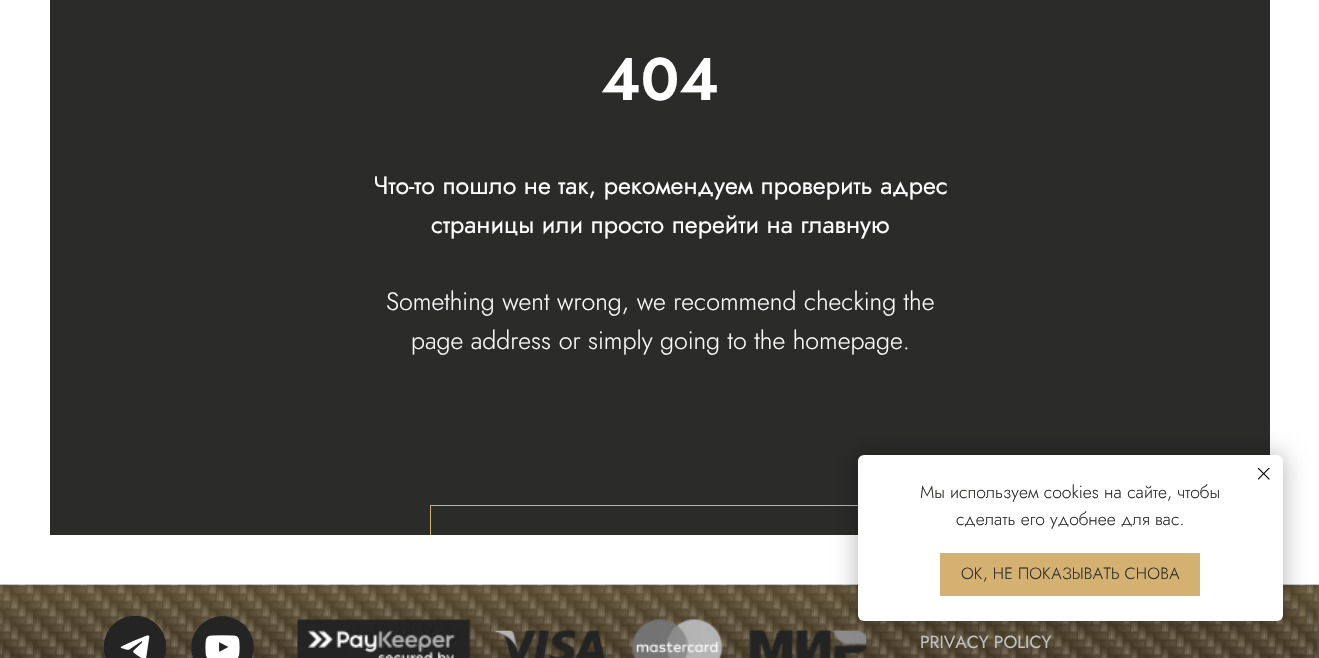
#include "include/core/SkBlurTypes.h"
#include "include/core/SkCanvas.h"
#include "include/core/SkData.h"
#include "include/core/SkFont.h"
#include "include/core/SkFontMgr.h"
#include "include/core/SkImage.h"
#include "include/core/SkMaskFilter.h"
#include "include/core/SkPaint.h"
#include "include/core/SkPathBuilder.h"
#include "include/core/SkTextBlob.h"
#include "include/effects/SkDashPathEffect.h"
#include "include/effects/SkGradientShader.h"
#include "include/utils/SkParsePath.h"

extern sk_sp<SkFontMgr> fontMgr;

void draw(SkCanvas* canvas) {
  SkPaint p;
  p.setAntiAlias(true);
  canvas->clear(SK_ColorWHITE);
  p.setColor(SkColorSetRGB(43, 43, 42));
  canvas->drawRect(SkRect::MakeLTRB(50, 0, 1270, 535), p);
  canvas->save();
  canvas->clipRect(SkRect::MakeLTRB(50, 0, 1270, 535));
  p.setStyle(SkPaint::kStroke_Style);
  p.setStrokeWidth(1);
  p.setColor(SkColorSetRGB(212, 177, 112));
  canvas->drawRect(SkRect::MakeLTRB(430.5f, 505.5f, 889.5f, 579.5f), p);
  canvas->restore();
  canvas->drawImageRect(SkImages::DeferredFromEncodedData(SkData::MakeFromFileName("images/2.png")), SkRect::MakeLTRB(0, 584, 1319, 658), SkSamplingOptions());
  canvas->drawImageRect(SkImages::DeferredFromEncodedData(SkData::MakeFromFileName("images/5.png")), SkRect::MakeLTRB(297, 619, 867, 658), SkSamplingOptions());
  p.setStyle(SkPaint::kFill_Style);
  p.setColor(SkColorSetARGB(77, 0, 0, 0));
  p.setMaskFilter(SkMaskFilter::MakeBlur(kNormal_SkBlurStyle, 12.5f));
  canvas->drawRoundRect(SkRect::MakeLTRB(858, 455, 1283, 621), 6, 6, p);
  p.setMaskFilter(nullptr);
  p.setColor(SK_ColorWHITE);
  canvas->drawRoundRect(SkRect::MakeLTRB(858, 455, 1283, 621), 6, 6, p);
  canvas->drawImageRect(SkImages::DeferredFromEncodedData(SkData::MakeFromFileName("images/1.png")), SkRect::MakeLTRB(1258, 468, 1270, 480), SkSamplingOptions());
  p.setColor(SkColorSetRGB(212, 177, 112));
  canvas->drawRect(SkRect::MakeLTRB(940, 553, 1200, 596), p);
  canvas->drawImageRect(SkImages::DeferredFromEncodedData(SkData::MakeFromFileName("images/3.png")), SkRect::MakeLTRB(104, 616, 166, 658), SkSamplingOptions());
  canvas->drawImageRect(SkImages::DeferredFromEncodedData(SkData::MakeFromFileName("images/4.png")), SkRect::MakeLTRB(191, 616, 254, 658), SkSamplingOptions());
  SkFont font1(fontMgr->matchFamilyStyle("Jost", SkFontStyle(600, SkFontStyle::kNormal_Width, SkFontStyle::kUpright_Slant)), 60);
  font1.setSubpixel(true);
  p.setColor(SK_ColorWHITE);
  canvas->drawString("404", 601, 100, font1, p);
  SkFont font2(fontMgr->matchFamilyStyle("Jost", SkFontStyle::Normal()), 25);
  font2.setSubpixel(true);
  canvas->drawString("Что-то пошло не так, рекомендуем проверить адрес", 373, 194, font2, p);
  canvas->drawString("страницы или просто перейти на главную", 431, 233, font2, p);
  SkFont font3(fontMgr->matchFamilyStyle("Jost", SkFontStyle(300, SkFontStyle::kNormal_Width, SkFontStyle::kUpright_Slant)), 25);
  font3.setSubpixel(true);
  canvas->drawString("Something went wrong, we recommend checking the", 386, 310, font3, p);
  canvas->drawString("page address or simply going to the homepage.", 411, 349, font3, p);
  SkFont font4(fontMgr->matchFamilyStyle("Jost", SkFontStyle(300, SkFontStyle::kNormal_Width, SkFontStyle::kUpright_Slant)), 17.5f);
  font4.setSubpixel(true);
  p.setColor(SkColorSetRGB(43, 43, 42));
  canvas->drawString("Мы используем cookies на сайте, чтобы", 920, 498, font4, p);
  canvas->drawString("сделать его удобнее для вас.", 956, 525, font4, p);
  SkFont font5(fontMgr->matchFamilyStyle("Jost", SkFontStyle(300, SkFontStyle::kNormal_Width, SkFontStyle::kUpright_Slant)), 16.25f);
  font5.setSubpixel(true);
  canvas->drawString("ОК, НЕ ПОКАЗЫВАТЬ СНОВА", 961, 579, font5, p);
  SkFont font6(fontMgr->matchFamilyStyle("Jost", SkFontStyle::Normal()), 17.5f);
  font6.setSubpixel(true);
  p.setColor(SkColorSetRGB(194, 194, 194));
  canvas->drawString("PRIVACY POLICY", 920, 648, font6, p);
}
